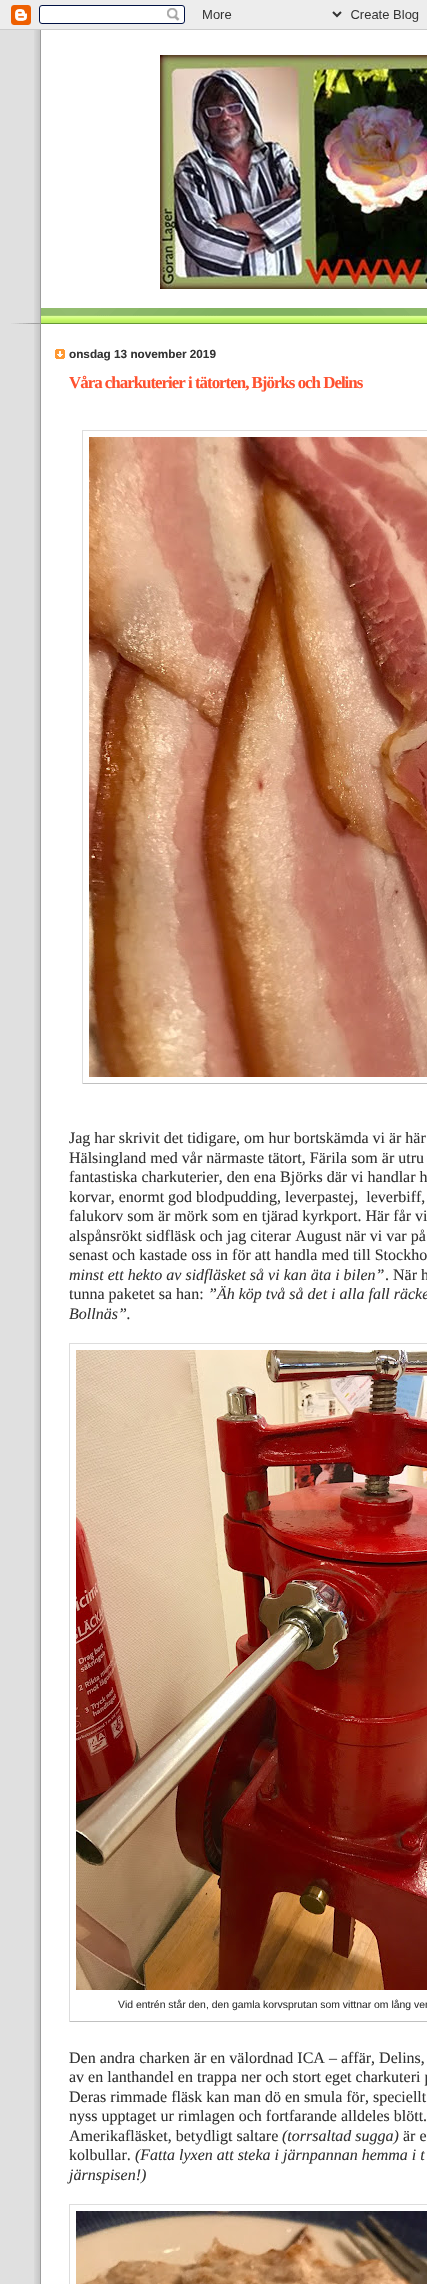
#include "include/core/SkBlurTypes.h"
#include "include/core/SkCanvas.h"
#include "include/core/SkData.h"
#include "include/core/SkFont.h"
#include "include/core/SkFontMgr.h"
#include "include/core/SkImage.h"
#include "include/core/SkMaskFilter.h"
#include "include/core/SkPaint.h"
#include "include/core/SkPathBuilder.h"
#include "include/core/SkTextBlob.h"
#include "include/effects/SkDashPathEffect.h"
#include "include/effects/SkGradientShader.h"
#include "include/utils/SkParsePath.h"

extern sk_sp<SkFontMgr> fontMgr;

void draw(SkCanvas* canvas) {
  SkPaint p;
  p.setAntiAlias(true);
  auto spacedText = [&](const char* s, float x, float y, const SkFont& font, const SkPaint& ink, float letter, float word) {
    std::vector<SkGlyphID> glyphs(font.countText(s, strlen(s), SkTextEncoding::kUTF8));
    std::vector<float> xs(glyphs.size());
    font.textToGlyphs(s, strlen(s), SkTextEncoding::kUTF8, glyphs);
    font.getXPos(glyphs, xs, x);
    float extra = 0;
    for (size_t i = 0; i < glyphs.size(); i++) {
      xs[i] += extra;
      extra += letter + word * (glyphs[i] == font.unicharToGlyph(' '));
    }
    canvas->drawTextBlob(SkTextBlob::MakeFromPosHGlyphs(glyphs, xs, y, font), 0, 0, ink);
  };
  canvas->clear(SkColorSetRGB(224, 224, 224));
  canvas->drawImageRect(SkImages::DeferredFromEncodedData(SkData::MakeFromFileName("images/1.png")), SkRect::MakeLTRB(0, 0, 427, 30), SkSamplingOptions());
  canvas->drawImageRect(SkImages::DeferredFromEncodedData(SkData::MakeFromFileName("images/2.png")), SkRect::MakeLTRB(34, 30, 427, 2284), SkSamplingOptions());
  canvas->drawImageRect(SkImages::DeferredFromEncodedData(SkData::MakeFromFileName("images/3.png")), SkRect::MakeLTRB(11, 308, 427, 324), SkSamplingOptions());
  canvas->drawImageRect(SkImages::DeferredFromEncodedData(SkData::MakeFromFileName("images/4.png")), SkRect::MakeLTRB(160, 55, 427, 289), SkSamplingOptions());
  canvas->drawImageRect(SkImages::DeferredFromEncodedData(SkData::MakeFromFileName("images/5.png")), SkRect::MakeLTRB(55, 349, 65, 359), SkSamplingOptions());
  p.setColor(SkColorSetRGB(221, 221, 221));
  canvas->drawRect(SkRect::MakeLTRB(82, 430, 427, 431), p);
  p.setColor(SkColorSetRGB(192, 192, 192));
  canvas->drawRect(SkRect::MakeLTRB(82, 1083, 427, 1084), p);
  p.setColor(SkColorSetRGB(221, 221, 221));
  canvas->drawRect(SkRect::MakeLTRB(82, 430, 83, 1084), p);
  canvas->drawImageRect(SkImages::DeferredFromEncodedData(SkData::MakeFromFileName("images/6.png")), SkRect::MakeLTRB(89, 437, 427, 1077), SkSamplingOptions());
  canvas->drawRect(SkRect::MakeLTRB(69, 1343, 427, 1344), p);
  p.setColor(SkColorSetRGB(192, 192, 192));
  canvas->drawRect(SkRect::MakeLTRB(69, 2021, 427, 2022), p);
  p.setColor(SkColorSetRGB(221, 221, 221));
  canvas->drawRect(SkRect::MakeLTRB(69, 1343, 70, 2022), p);
  canvas->drawImageRect(SkImages::DeferredFromEncodedData(SkData::MakeFromFileName("images/7.png")), SkRect::MakeLTRB(76, 1350, 427, 1990), SkSamplingOptions());
  canvas->drawRect(SkRect::MakeLTRB(69, 2204, 427, 2205), p);
  canvas->drawRect(SkRect::MakeLTRB(69, 2204, 70, 2284), p);
  canvas->drawImageRect(SkImages::DeferredFromEncodedData(SkData::MakeFromFileName("images/8.png")), SkRect::MakeLTRB(76, 2211, 427, 2284), SkSamplingOptions());
  SkFont font1(fontMgr->matchFamilyStyle("Liberation Sans", SkFontStyle::Bold()), 11.75f);
  font1.setSubpixel(true);
  p.setColor(SkColorSetRGB(51, 51, 51));
  canvas->drawString("onsdag 13 november 2019", 69, 358, font1, p);
  SkFont font2(fontMgr->matchFamilyStyle("Liberation Serif", SkFontStyle::Bold()), 16.9f);
  font2.setSubpixel(true);
  p.setColor(SkColorSetRGB(255, 82, 48));
  spacedText("Våra charkuterier i tätorten, Björks och Delins", 69, 388, font2, p, -1, 0);
  SkFont font3(fontMgr->matchFamilyStyle("Liberation Serif", SkFontStyle::Normal()), 16);
  font3.setSubpixel(true);
  p.setColor(SkColorSetRGB(51, 51, 51));
  canvas->drawString("Jag har skrivit det tidigare, om hur bortskämda vi är här", 69, 1143, font3, p);
  canvas->drawString("Hälsingland med vår närmaste tätort, Färila som är utru", 69, 1163, font3, p);
  canvas->drawString("fantastiska charkuterier, den ena Björks där vi handlar h", 69, 1182, font3, p);
  canvas->drawString("korvar, enormt god blodpudding, leverpastej,  leverbiff,", 69, 1202, font3, p);
  canvas->drawString("falukorv som är mörk som en tjärad kyrkport. Här får vi", 69, 1221, font3, p);
  canvas->drawString("alspånsrökt sidfläsk och jag citerar August när vi var på", 69, 1241, font3, p);
  canvas->drawString("senast och kastade oss in för att handla med till Stockho", 69, 1260, font3, p);
  SkFont font4(fontMgr->matchFamilyStyle("Liberation Serif", SkFontStyle::Italic()), 16);
  font4.setSubpixel(true);
  canvas->drawString("minst ett hekto av sidfläsket så vi kan äta i bilen”", 69, 1280, font4, p);
  canvas->drawString(". När h", 385, 1280, font3, p);
  canvas->drawString("tunna paketet sa han:", 69, 1299, font3, p);
  canvas->drawString("”Äh köp två så det i alla fall räcke", 208, 1299, font4, p);
  canvas->drawString("Bollnäs”.", 69, 1319, font4, p);
  SkFont font5(fontMgr->matchFamilyStyle("Liberation Sans", SkFontStyle::Normal()), 10.4f);
  font5.setSubpixel(true);
  canvas->drawString("Vid entrén står den, den gamla korvsprutan som vittnar om lång ver", 118, 2008, font5, p);
  canvas->drawString("Den andra charken är en välordnad ICA – affär, Delins,", 69, 2063, font3, p);
  canvas->drawString("av en lanthandel en trappa ner och stort eget charkuteri p", 69, 2082, font3, p);
  canvas->drawString("Deras rimmade fläsk kan man dö en smula för, speciellt", 69, 2102, font3, p);
  canvas->drawString("nyss upptaget ur rimlagen och fortfarande alldeles blött.", 69, 2121, font3, p);
  canvas->drawString("Amerikafläsket, betydligt saltare", 69, 2141, font3, p);
  canvas->drawString("(torrsaltad sugga)", 282, 2141, font4, p);
  canvas->drawString("är e", 403, 2141, font3, p);
  canvas->drawString("kolbullar.", 69, 2160, font3, p);
  canvas->drawString("(Fatta lyxen att steka i järnpannan hemma i t", 135, 2160, font4, p);
  canvas->drawString("järnspisen!)", 69, 2180, font4, p);
}
